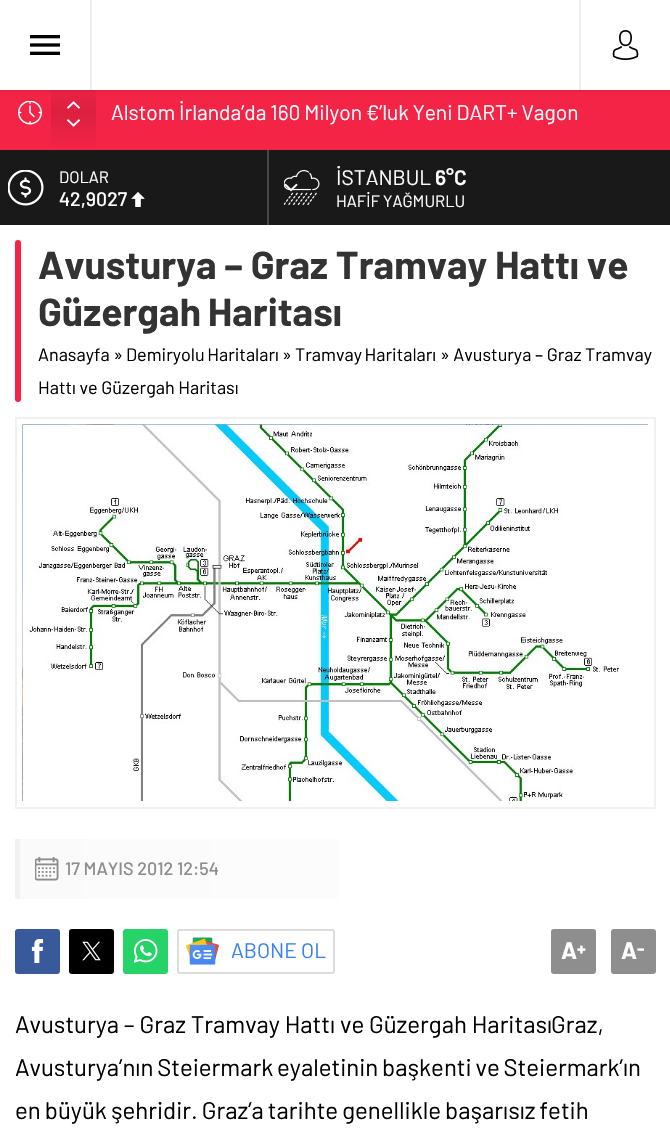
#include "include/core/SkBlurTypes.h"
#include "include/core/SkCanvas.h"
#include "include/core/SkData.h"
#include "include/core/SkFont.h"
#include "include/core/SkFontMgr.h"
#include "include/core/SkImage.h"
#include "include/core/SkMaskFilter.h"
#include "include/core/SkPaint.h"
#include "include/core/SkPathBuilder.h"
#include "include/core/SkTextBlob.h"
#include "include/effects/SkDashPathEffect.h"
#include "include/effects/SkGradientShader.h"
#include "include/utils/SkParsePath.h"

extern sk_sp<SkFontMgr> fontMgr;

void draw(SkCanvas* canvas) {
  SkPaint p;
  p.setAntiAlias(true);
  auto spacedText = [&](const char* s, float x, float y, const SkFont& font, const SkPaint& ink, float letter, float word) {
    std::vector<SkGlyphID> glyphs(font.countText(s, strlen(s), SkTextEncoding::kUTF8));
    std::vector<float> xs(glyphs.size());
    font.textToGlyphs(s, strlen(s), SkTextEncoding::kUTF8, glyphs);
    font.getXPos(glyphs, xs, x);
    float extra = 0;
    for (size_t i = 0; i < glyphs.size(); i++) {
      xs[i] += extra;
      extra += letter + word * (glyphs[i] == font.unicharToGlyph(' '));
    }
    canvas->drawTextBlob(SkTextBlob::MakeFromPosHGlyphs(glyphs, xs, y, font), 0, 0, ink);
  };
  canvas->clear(SkColorSetRGB(244, 36, 71));
  {
    const SkColor colors[] = {SkColorSetRGB(244, 36, 71), SkColorSetRGB(220, 32, 64), SkColorSetRGB(244, 36, 71)};
    const float stops[] = {0, 0.5f, 1};
    const SkPoint ends[] = {{74, 75}, {74, 150}};
    p.setShader(SkGradientShader::MakeLinear(ends, colors, stops, 3, SkTileMode::kClamp));
    p.setAlpha(255);
  }
  canvas->drawRect(SkRect::MakeLTRB(51, 90, 96, 146), p);
  p.setShader(nullptr);
  p.setColor(SkColorSetARGB(38, 0, 0, 0));
  p.setMaskFilter(SkMaskFilter::MakeBlur(kNormal_SkBlurStyle, 2));
  canvas->drawRect(SkRect::MakeLTRB(0, 0, 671, 90), p);
  p.setMaskFilter(nullptr);
  p.setColor(SK_ColorWHITE);
  canvas->drawRect(SkRect::MakeLTRB(0, 0, 670, 90), p);
  p.setColor(SkColorSetRGB(238, 238, 238));
  canvas->drawRect(SkRect::MakeLTRB(90, 0, 92, 90), p);
  canvas->drawImageRect(SkImages::DeferredFromEncodedData(SkData::MakeFromFileName("images/1.png")), SkRect::MakeLTRB(30, 35, 60, 55), SkSamplingOptions());
  canvas->drawRect(SkRect::MakeLTRB(579, 0, 581, 90), p);
  canvas->drawImageRect(SkImages::DeferredFromEncodedData(SkData::MakeFromFileName("images/2.png")), SkRect::MakeLTRB(612, 30, 639, 60), SkSamplingOptions());
  canvas->drawImageRect(SkImages::DeferredFromEncodedData(SkData::MakeFromFileName("images/3.png")), SkRect::MakeLTRB(18, 101, 42, 125), SkSamplingOptions());
  canvas->drawImageRect(SkImages::DeferredFromEncodedData(SkData::MakeFromFileName("images/4.png")), SkRect::MakeLTRB(67, 101, 80, 109), SkSamplingOptions());
  canvas->drawImageRect(SkImages::DeferredFromEncodedData(SkData::MakeFromFileName("images/5.png")), SkRect::MakeLTRB(67, 119, 80, 127), SkSamplingOptions());
  p.setColor(SkColorSetRGB(25, 25, 25));
  canvas->drawRect(SkRect::MakeLTRB(0, 150, 267, 225), p);
  p.setColor(SkColorSetRGB(71, 71, 71));
  canvas->drawRect(SkRect::MakeLTRB(267, 150, 269, 225), p);
  canvas->drawImageRect(SkImages::DeferredFromEncodedData(SkData::MakeFromFileName("images/6.png")), SkRect::MakeLTRB(8, 170, 44, 206), SkSamplingOptions());
  canvas->drawImageRect(SkImages::DeferredFromEncodedData(SkData::MakeFromFileName("images/7.png")), SkRect::MakeLTRB(131, 192, 145, 207), SkSamplingOptions());
  p.setColor(SkColorSetRGB(25, 25, 25));
  canvas->drawRect(SkRect::MakeLTRB(269, 150, 670, 225), p);
  canvas->drawImageRect(SkImages::DeferredFromEncodedData(SkData::MakeFromFileName("images/9.png")), SkRect::MakeLTRB(284, 170, 320, 205), SkSamplingOptions());
  canvas->drawImageRect(SkImages::DeferredFromEncodedData(SkData::MakeFromFileName("images/8.png")), SkRect::MakeLTRB(284, 183, 298, 192), SkSamplingOptions());
  p.setColor(SK_ColorWHITE);
  canvas->drawRect(SkRect::MakeLTRB(0, 225, 670, 1146), p);
  p.setColor(SkColorSetRGB(244, 36, 71));
  canvas->drawRoundRect(SkRect::MakeLTRB(15, 240, 21, 402), 3, 3, p);
  p.setStyle(SkPaint::kStroke_Style);
  p.setStrokeWidth(2);
  p.setColor(SkColorSetRGB(241, 241, 241));
  canvas->drawRect(SkRect::MakeLTRB(16, 418, 655, 808), p);
  canvas->drawImageRect(SkImages::DeferredFromEncodedData(SkData::MakeFromFileName("images/10.png")), SkRect::MakeLTRB(22, 424, 648, 801), SkSamplingOptions());
  canvas->drawImageRect(SkImages::DeferredFromEncodedData(SkData::MakeFromFileName("images/11.png")), SkRect::MakeLTRB(22, 424, 648, 801), SkSamplingOptions());
  p.setStyle(SkPaint::kFill_Style);
  {
    const SkColor colors[] = {SkColorSetRGB(250, 250, 250), SK_ColorWHITE};
    const float stops[] = {0, 1};
    const SkPoint ends[] = {{20, 869}, {656, 869}};
    p.setShader(SkGradientShader::MakeLinear(ends, colors, stops, 2, SkTileMode::kClamp));
    p.setAlpha(255);
  }
  canvas->drawRect(SkRect::MakeLTRB(20, 839, 338, 899), p);
  p.setShader(nullptr);
  p.setColor(SkColorSetRGB(241, 241, 241));
  canvas->drawRect(SkRect::MakeLTRB(15, 839, 20, 899), p);
  canvas->drawImageRect(SkImages::DeferredFromEncodedData(SkData::MakeFromFileName("images/12.png")), SkRect::MakeLTRB(35, 857, 59, 881), SkSamplingOptions());
  p.setColor(SkColorSetRGB(56, 89, 155));
  canvas->drawRoundRect(SkRect::MakeLTRB(15, 929, 60, 974), 3, 3, p);
  canvas->drawImageRect(SkImages::DeferredFromEncodedData(SkData::MakeFromFileName("images/13.png")), SkRect::MakeLTRB(31, 939, 44, 963), SkSamplingOptions());
  p.setColor(SK_ColorBLACK);
  canvas->drawRoundRect(SkRect::MakeLTRB(69, 929, 114, 974), 3, 3, p);
  canvas->drawImageRect(SkImages::DeferredFromEncodedData(SkData::MakeFromFileName("images/14.png")), SkRect::MakeLTRB(82, 941, 101, 961), SkSamplingOptions());
  p.setColor(SkColorSetRGB(37, 211, 102));
  canvas->drawRoundRect(SkRect::MakeLTRB(123, 929, 168, 974), 3, 3, p);
  canvas->drawImageRect(SkImages::DeferredFromEncodedData(SkData::MakeFromFileName("images/15.png")), SkRect::MakeLTRB(134, 939, 158, 963), SkSamplingOptions());
  canvas->drawImageRect(SkImages::DeferredFromEncodedData(SkData::MakeFromFileName("images/16.png")), SkRect::MakeLTRB(186, 937, 219, 965), SkSamplingOptions());
  p.setStyle(SkPaint::kStroke_Style);
  p.setColor(SkColorSetRGB(221, 221, 221));
  canvas->drawRoundRect(SkRect::MakeLTRB(178, 930, 334, 973), 2, 2, p);
  p.setStyle(SkPaint::kFill_Style);
  p.setColor(SkColorSetRGB(142, 142, 142));
  canvas->drawRoundRect(SkRect::MakeLTRB(551, 929, 596, 974), 3, 3, p);
  canvas->drawRoundRect(SkRect::MakeLTRB(611, 929, 656, 974), 3, 3, p);
  SkFont font1(fontMgr->matchFamilyStyle("Barlow", SkFontStyle::Normal()), 21);
  font1.setSubpixel(true);
  p.setColor(SK_ColorWHITE);
  spacedText("Alstom İrlanda’da 160 Milyon €’luk Yeni DART+ Vagon", 111, 120, font1, p, 0, -0.25f);
  SkFont font2(fontMgr->matchFamilyStyle("Barlow", SkFontStyle::Normal()), 16.5f);
  font2.setSubpixel(true);
  canvas->drawString("DOLAR", 59, 183, font2, p);
  SkFont font3(fontMgr->matchFamilyStyle("Barlow", SkFontStyle(500, SkFontStyle::kNormal_Width, SkFontStyle::kUpright_Slant)), 19.5f);
  font3.setSubpixel(true);
  canvas->drawString("42,9027", 59, 206, font3, p);
  canvas->drawString("İSTANBUL", 336, 185, font1, p);
  SkFont font4(fontMgr->matchFamilyStyle("Barlow", SkFontStyle(600, SkFontStyle::kNormal_Width, SkFontStyle::kUpright_Slant)), 21);
  font4.setSubpixel(true);
  canvas->drawString("6°C", 435, 185, font4, p);
  canvas->drawString("HAFİF YAĞMURLU", 336, 207, font2, p);
  SkFont font5(fontMgr->matchFamilyStyle("Barlow", SkFontStyle::Bold()), 39);
  font5.setSubpixel(true);
  p.setColor(SkColorSetRGB(51, 51, 51));
  canvas->drawString("Avusturya – Graz Tramvay Hattı ve", 38, 279, font5, p);
  spacedText("Güzergah Haritası", 38, 326, font5, p, 0, -1);
  SkFont font6(fontMgr->matchFamilyStyle("Barlow", SkFontStyle::Normal()), 18);
  font6.setSubpixel(true);
  p.setColor(SK_ColorBLACK);
  canvas->drawString("Anasayfa »", 38, 361, font6, p);
  spacedText("Demiryolu Haritaları", 126, 361, font6, p, 0, -1);
  canvas->drawString("»", 282, 361, font6, p);
  spacedText("Tramvay Haritaları", 295, 361, font6, p, 0, -1);
  canvas->drawString("» Avusturya – Graz Tramvay", 440, 361, font6, p);
  canvas->drawString("Hattı ve Güzergah Haritası", 38, 394, font6, p);
  SkFont font7(fontMgr->matchFamilyStyle("Barlow", SkFontStyle(500, SkFontStyle::kNormal_Width, SkFontStyle::kUpright_Slant)), 18);
  font7.setSubpixel(true);
  p.setColor(SkColorSetRGB(141, 141, 141));
  canvas->drawString("17 MAYIS 2012 12:54", 65, 875, font7, p);
  p.setColor(SkColorSetRGB(57, 128, 242));
  canvas->drawString("ABONE OL", 231, 958, font1, p);
  SkFont font8(fontMgr->matchFamilyStyle("Barlow", SkFontStyle::Bold()), 24);
  font8.setSubpixel(true);
  p.setColor(SK_ColorWHITE);
  canvas->drawString("A", 561, 959, font8, p);
  SkFont font9(fontMgr->matchFamilyStyle("Barlow", SkFontStyle::Bold()), 18);
  font9.setSubpixel(true);
  canvas->drawString("+", 577, 955, font9, p);
  canvas->drawString("A", 621, 959, font8, p);
  canvas->drawString("-", 637, 955, font9, p);
  SkFont font10(fontMgr->matchFamilyStyle("Barlow", SkFontStyle::Normal()), 24);
  font10.setSubpixel(true);
  p.setColor(SK_ColorBLACK);
  canvas->drawString("Avusturya – Graz Tramvay Hattı ve Güzergah Haritası", 15, 1033, font10, p);
  canvas->drawString("Graz,", 551, 1033, font10, p);
  spacedText("Avusturya’nın Steiermark eyaletinin başkenti ve Steiermark’ın", 15, 1076, font10, p, 0, -1);
  spacedText("en büyük şehridir. Graz’a tarihte genellikle başarısız fetih", 15, 1119, font10, p, 0, -0.75f);
}
